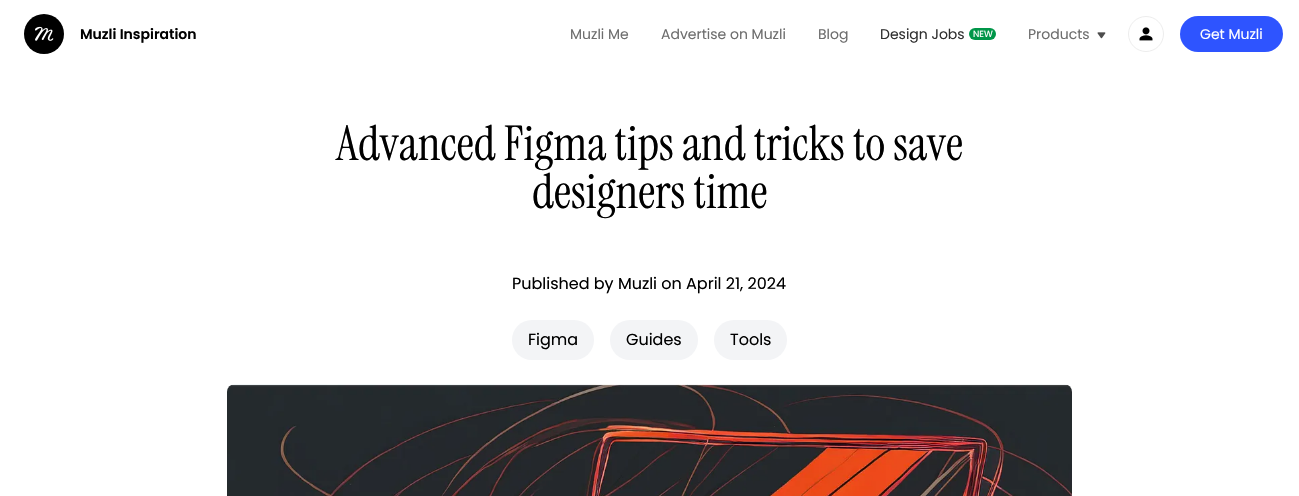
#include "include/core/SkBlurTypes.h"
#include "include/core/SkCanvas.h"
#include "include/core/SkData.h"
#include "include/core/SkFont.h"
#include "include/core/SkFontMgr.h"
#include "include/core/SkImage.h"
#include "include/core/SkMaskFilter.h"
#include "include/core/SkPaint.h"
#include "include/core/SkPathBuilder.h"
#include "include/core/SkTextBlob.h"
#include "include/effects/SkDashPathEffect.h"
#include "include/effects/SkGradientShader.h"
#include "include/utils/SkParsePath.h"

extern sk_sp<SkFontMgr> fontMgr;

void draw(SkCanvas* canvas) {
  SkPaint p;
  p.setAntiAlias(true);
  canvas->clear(SK_ColorWHITE);
  p.setColor(SK_ColorBLACK);
  canvas->drawCircle(44, 34, 20, p);
  canvas->drawImageRect(SkImages::DeferredFromEncodedData(SkData::MakeFromFileName("images/1.png")), SkRect::MakeLTRB(35, 26, 54, 41), SkSamplingOptions());
  p.setColor(SkColorSetRGB(0, 150, 73));
  canvas->drawRoundRect(SkRect::MakeLTRB(969, 28, 996, 40), 6, 6, p);
  canvas->drawImageRect(SkImages::DeferredFromEncodedData(SkData::MakeFromFileName("images/2.png")), SkRect::MakeLTRB(1097, 32, 1106, 39), SkSamplingOptions());
  p.setStyle(SkPaint::kStroke_Style);
  p.setStrokeWidth(1);
  p.setColor(SkColorSetRGB(237, 237, 237));
  canvas->drawCircle(1146, 34, 17.5f, p);
  canvas->drawImageRect(SkImages::DeferredFromEncodedData(SkData::MakeFromFileName("images/3.png")), SkRect::MakeLTRB(1139, 27, 1153, 41), SkSamplingOptions());
  p.setStyle(SkPaint::kFill_Style);
  p.setColor(SkColorSetRGB(46, 84, 255));
  canvas->drawRoundRect(SkRect::MakeLTRB(1180, 16, 1283, 52), 18, 18, p);
  p.setColor(SkColorSetRGB(243, 244, 246));
  canvas->drawRoundRect(SkRect::MakeLTRB(512, 320, 594, 360), 20, 20, p);
  canvas->drawRoundRect(SkRect::MakeLTRB(610, 320, 698, 360), 20, 20, p);
  canvas->drawRoundRect(SkRect::MakeLTRB(714, 320, 787, 360), 20, 20, p);
  canvas->drawImageRect(SkImages::DeferredFromEncodedData(SkData::MakeFromFileName("images/4.png")), SkRect::MakeLTRB(227, 384, 1072, 496), SkSamplingOptions());
  SkFont font1(fontMgr->matchFamilyStyle("Poppins", SkFontStyle(600, SkFontStyle::kNormal_Width, SkFontStyle::kUpright_Slant)), 14);
  font1.setSubpixel(true);
  p.setColor(SK_ColorBLACK);
  canvas->drawString("Muzli Inspiration", 80, 39, font1, p);
  SkFont font2(fontMgr->matchFamilyStyle("Poppins", SkFontStyle::Normal()), 14);
  font2.setSubpixel(true);
  p.setColor(SkColorSetRGB(110, 110, 110));
  canvas->drawString("Muzli Me", 570, 39, font2, p);
  canvas->drawString("Advertise on Muzli", 661, 39, font2, p);
  canvas->drawString("Blog", 818, 39, font2, p);
  p.setColor(SkColorSetRGB(48, 48, 48));
  canvas->drawString("Design Jobs", 880, 39, font2, p);
  SkFont font3(fontMgr->matchFamilyStyle("Poppins", SkFontStyle::Normal()), 9);
  font3.setSubpixel(true);
  p.setColor(SK_ColorWHITE);
  canvas->drawString("NEW", 973, 37, font3, p);
  p.setColor(SkColorSetRGB(110, 110, 110));
  canvas->drawString("Products", 1028, 39, font2, p);
  p.setColor(SK_ColorWHITE);
  canvas->drawString("Get Muzli", 1200, 39, font2, p);
  SkFont font4(fontMgr->matchFamilyStyle("Instrument Serif", SkFontStyle::Normal()), 48);
  font4.setSubpixel(true);
  p.setColor(SK_ColorBLACK);
  canvas->drawString("Advanced Figma tips and tricks to save", 336, 160, font4, p);
  canvas->drawString("designers time", 532, 208, font4, p);
  SkFont font5(fontMgr->matchFamilyStyle("Poppins", SkFontStyle::Normal()), 16);
  font5.setSubpixel(true);
  canvas->drawString("Published by Muzli on April 21, 2024", 512, 289, font5, p);
  canvas->drawString("Figma", 528, 345, font5, p);
  canvas->drawString("Guides", 626, 345, font5, p);
  canvas->drawString("Tools", 730, 345, font5, p);
}
